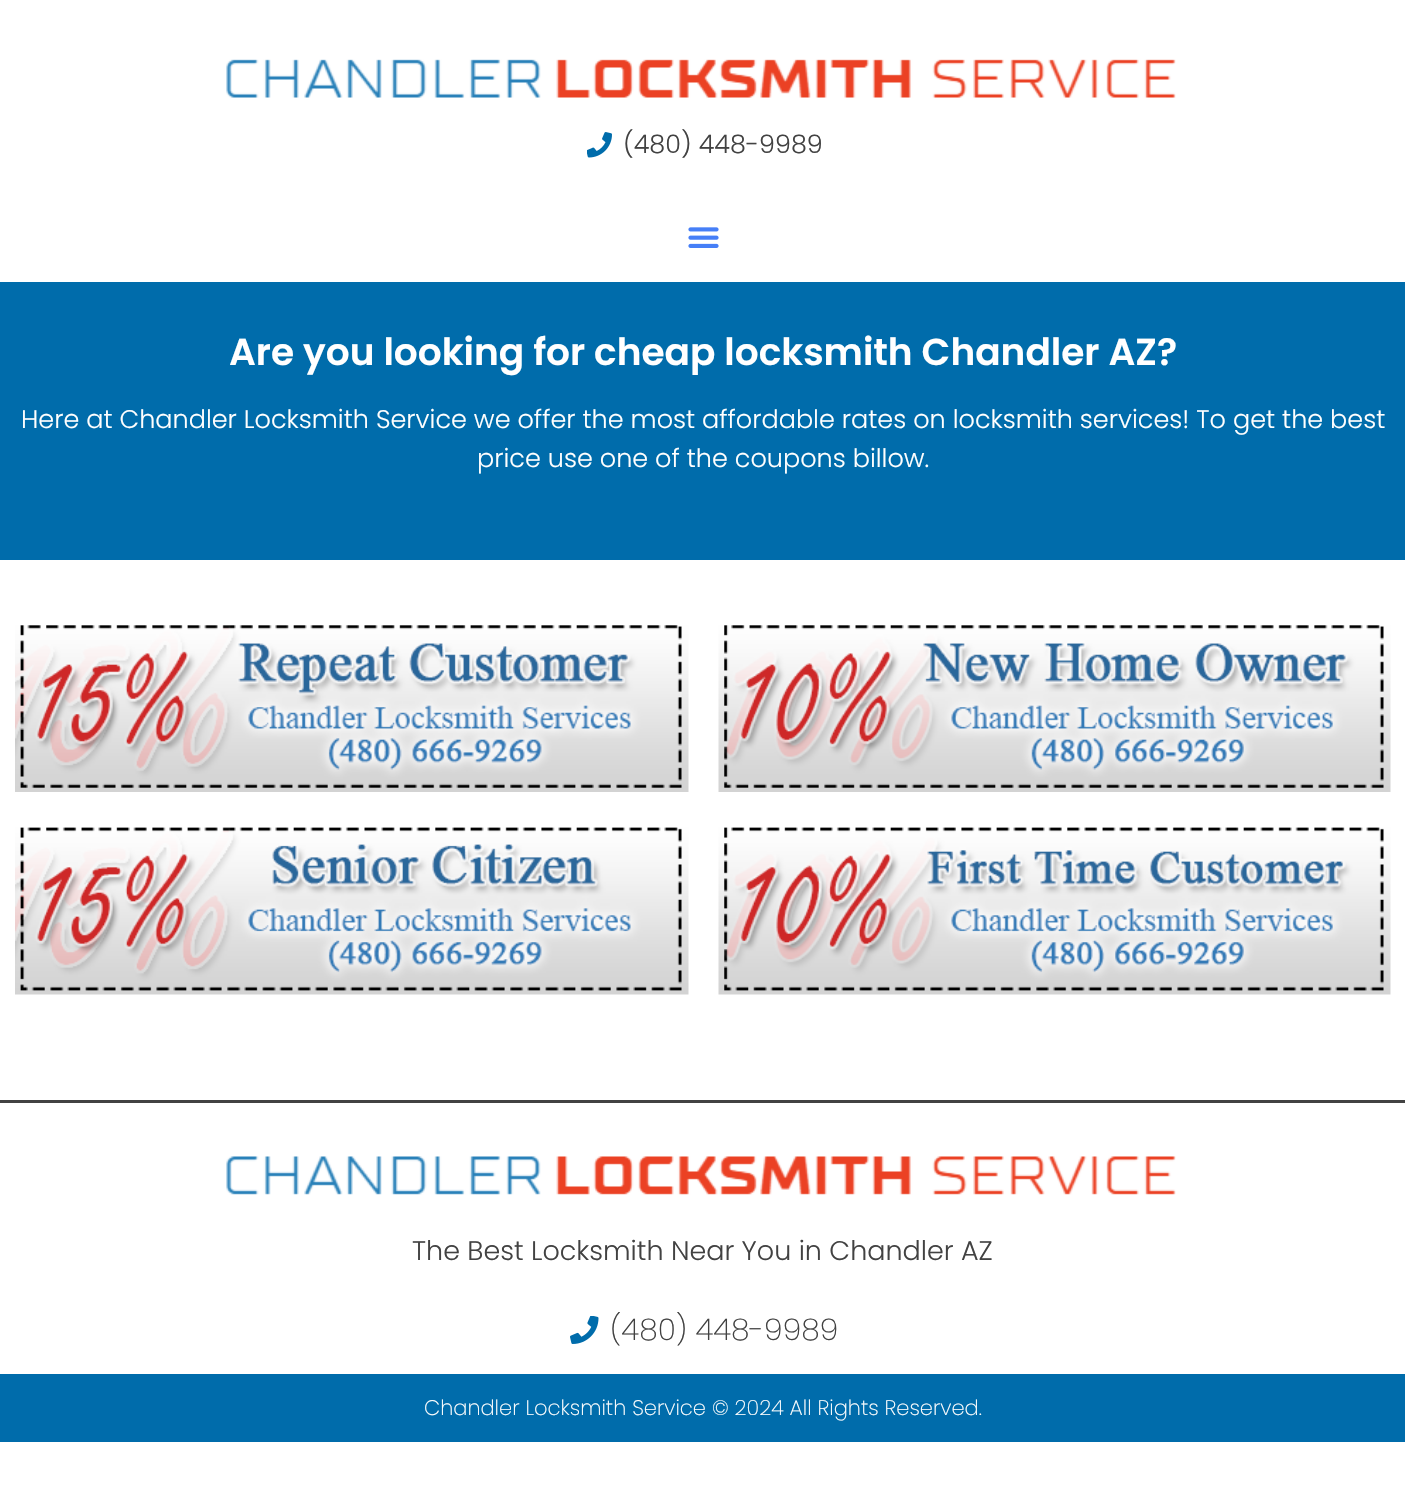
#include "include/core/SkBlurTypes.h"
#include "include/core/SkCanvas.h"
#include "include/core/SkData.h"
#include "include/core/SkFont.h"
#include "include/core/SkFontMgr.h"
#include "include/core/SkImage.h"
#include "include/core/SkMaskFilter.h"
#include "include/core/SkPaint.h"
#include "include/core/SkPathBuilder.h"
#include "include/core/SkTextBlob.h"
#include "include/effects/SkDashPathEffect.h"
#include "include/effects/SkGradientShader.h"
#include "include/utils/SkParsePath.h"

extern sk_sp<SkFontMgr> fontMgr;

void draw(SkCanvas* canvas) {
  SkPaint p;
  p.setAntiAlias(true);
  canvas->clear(SK_ColorWHITE);
  canvas->drawImageRect(SkImages::DeferredFromEncodedData(SkData::MakeFromFileName("images/1.png")), SkRect::MakeLTRB(226, 59, 1176, 98), SkSamplingOptions());
  canvas->drawImageRect(SkImages::DeferredFromEncodedData(SkData::MakeFromFileName("images/2.png")), SkRect::MakeLTRB(587, 132, 612, 158), SkSamplingOptions());
  canvas->drawImageRect(SkImages::DeferredFromEncodedData(SkData::MakeFromFileName("images/3.png")), SkRect::MakeLTRB(688, 227, 719, 248), SkSamplingOptions());
  p.setColor(SkColorSetRGB(0, 108, 171));
  canvas->drawRect(SkRect::MakeLTRB(0, 282, 1405, 560), p);
  canvas->drawImageRect(SkImages::DeferredFromEncodedData(SkData::MakeFromFileName("images/4.png")), SkRect::MakeLTRB(15, 625, 689, 792), SkSamplingOptions());
  canvas->drawImageRect(SkImages::DeferredFromEncodedData(SkData::MakeFromFileName("images/5.png")), SkRect::MakeLTRB(15, 827, 689, 995), SkSamplingOptions());
  canvas->drawImageRect(SkImages::DeferredFromEncodedData(SkData::MakeFromFileName("images/6.png")), SkRect::MakeLTRB(718, 625, 1391, 792), SkSamplingOptions());
  canvas->drawImageRect(SkImages::DeferredFromEncodedData(SkData::MakeFromFileName("images/7.png")), SkRect::MakeLTRB(718, 827, 1391, 995), SkSamplingOptions());
  p.setColor(SkColorSetRGB(66, 66, 66));
  canvas->drawRect(SkRect::MakeLTRB(0, 1100, 1405, 1103), p);
  canvas->drawImageRect(SkImages::DeferredFromEncodedData(SkData::MakeFromFileName("images/8.png")), SkRect::MakeLTRB(226, 1156, 1176, 1195), SkSamplingOptions());
  canvas->drawImageRect(SkImages::DeferredFromEncodedData(SkData::MakeFromFileName("images/9.png")), SkRect::MakeLTRB(570, 1316, 599, 1344), SkSamplingOptions());
  p.setColor(SkColorSetRGB(0, 108, 171));
  canvas->drawRect(SkRect::MakeLTRB(0, 1374, 1405, 1442), p);
  SkFont font1(fontMgr->matchFamilyStyle("Poppins", SkFontStyle(300, SkFontStyle::kNormal_Width, SkFontStyle::kUpright_Slant)), 25.5f);
  font1.setSubpixel(true);
  p.setColor(SkColorSetRGB(66, 66, 66));
  canvas->drawString("(480) 448-9989", 623, 153, font1, p);
  SkFont font2(fontMgr->matchFamilyStyle("Poppins", SkFontStyle(600, SkFontStyle::kNormal_Width, SkFontStyle::kUpright_Slant)), 37.5f);
  font2.setSubpixel(true);
  p.setColor(SK_ColorWHITE);
  canvas->drawString("Are you looking for cheap locksmith Chandler AZ?", 229, 365, font2, p);
  canvas->drawString("Here at Chandler Locksmith Service we offer the most affordable rates on locksmith services! To get the best", 21, 428, font1, p);
  canvas->drawString("price use one of the coupons billow.", 477, 467, font1, p);
  SkFont font3(fontMgr->matchFamilyStyle("Poppins", SkFontStyle(300, SkFontStyle::kNormal_Width, SkFontStyle::kUpright_Slant)), 27);
  font3.setSubpixel(true);
  p.setColor(SkColorSetRGB(66, 66, 66));
  canvas->drawString("The Best Locksmith Near You in Chandler AZ", 412, 1260, font3, p);
  SkFont font4(fontMgr->matchFamilyStyle("Poppins", SkFontStyle(200, SkFontStyle::kNormal_Width, SkFontStyle::kUpright_Slant)), 30);
  font4.setSubpixel(true);
  canvas->drawString("(480) 448-9989", 610, 1340, font4, p);
  SkFont font5(fontMgr->matchFamilyStyle("Poppins", SkFontStyle(200, SkFontStyle::kNormal_Width, SkFontStyle::kUpright_Slant)), 21);
  font5.setSubpixel(true);
  p.setColor(SK_ColorWHITE);
  canvas->drawString("Chandler Locksmith Service © 2024 All Rights Reserved.", 424, 1415, font5, p);
}
